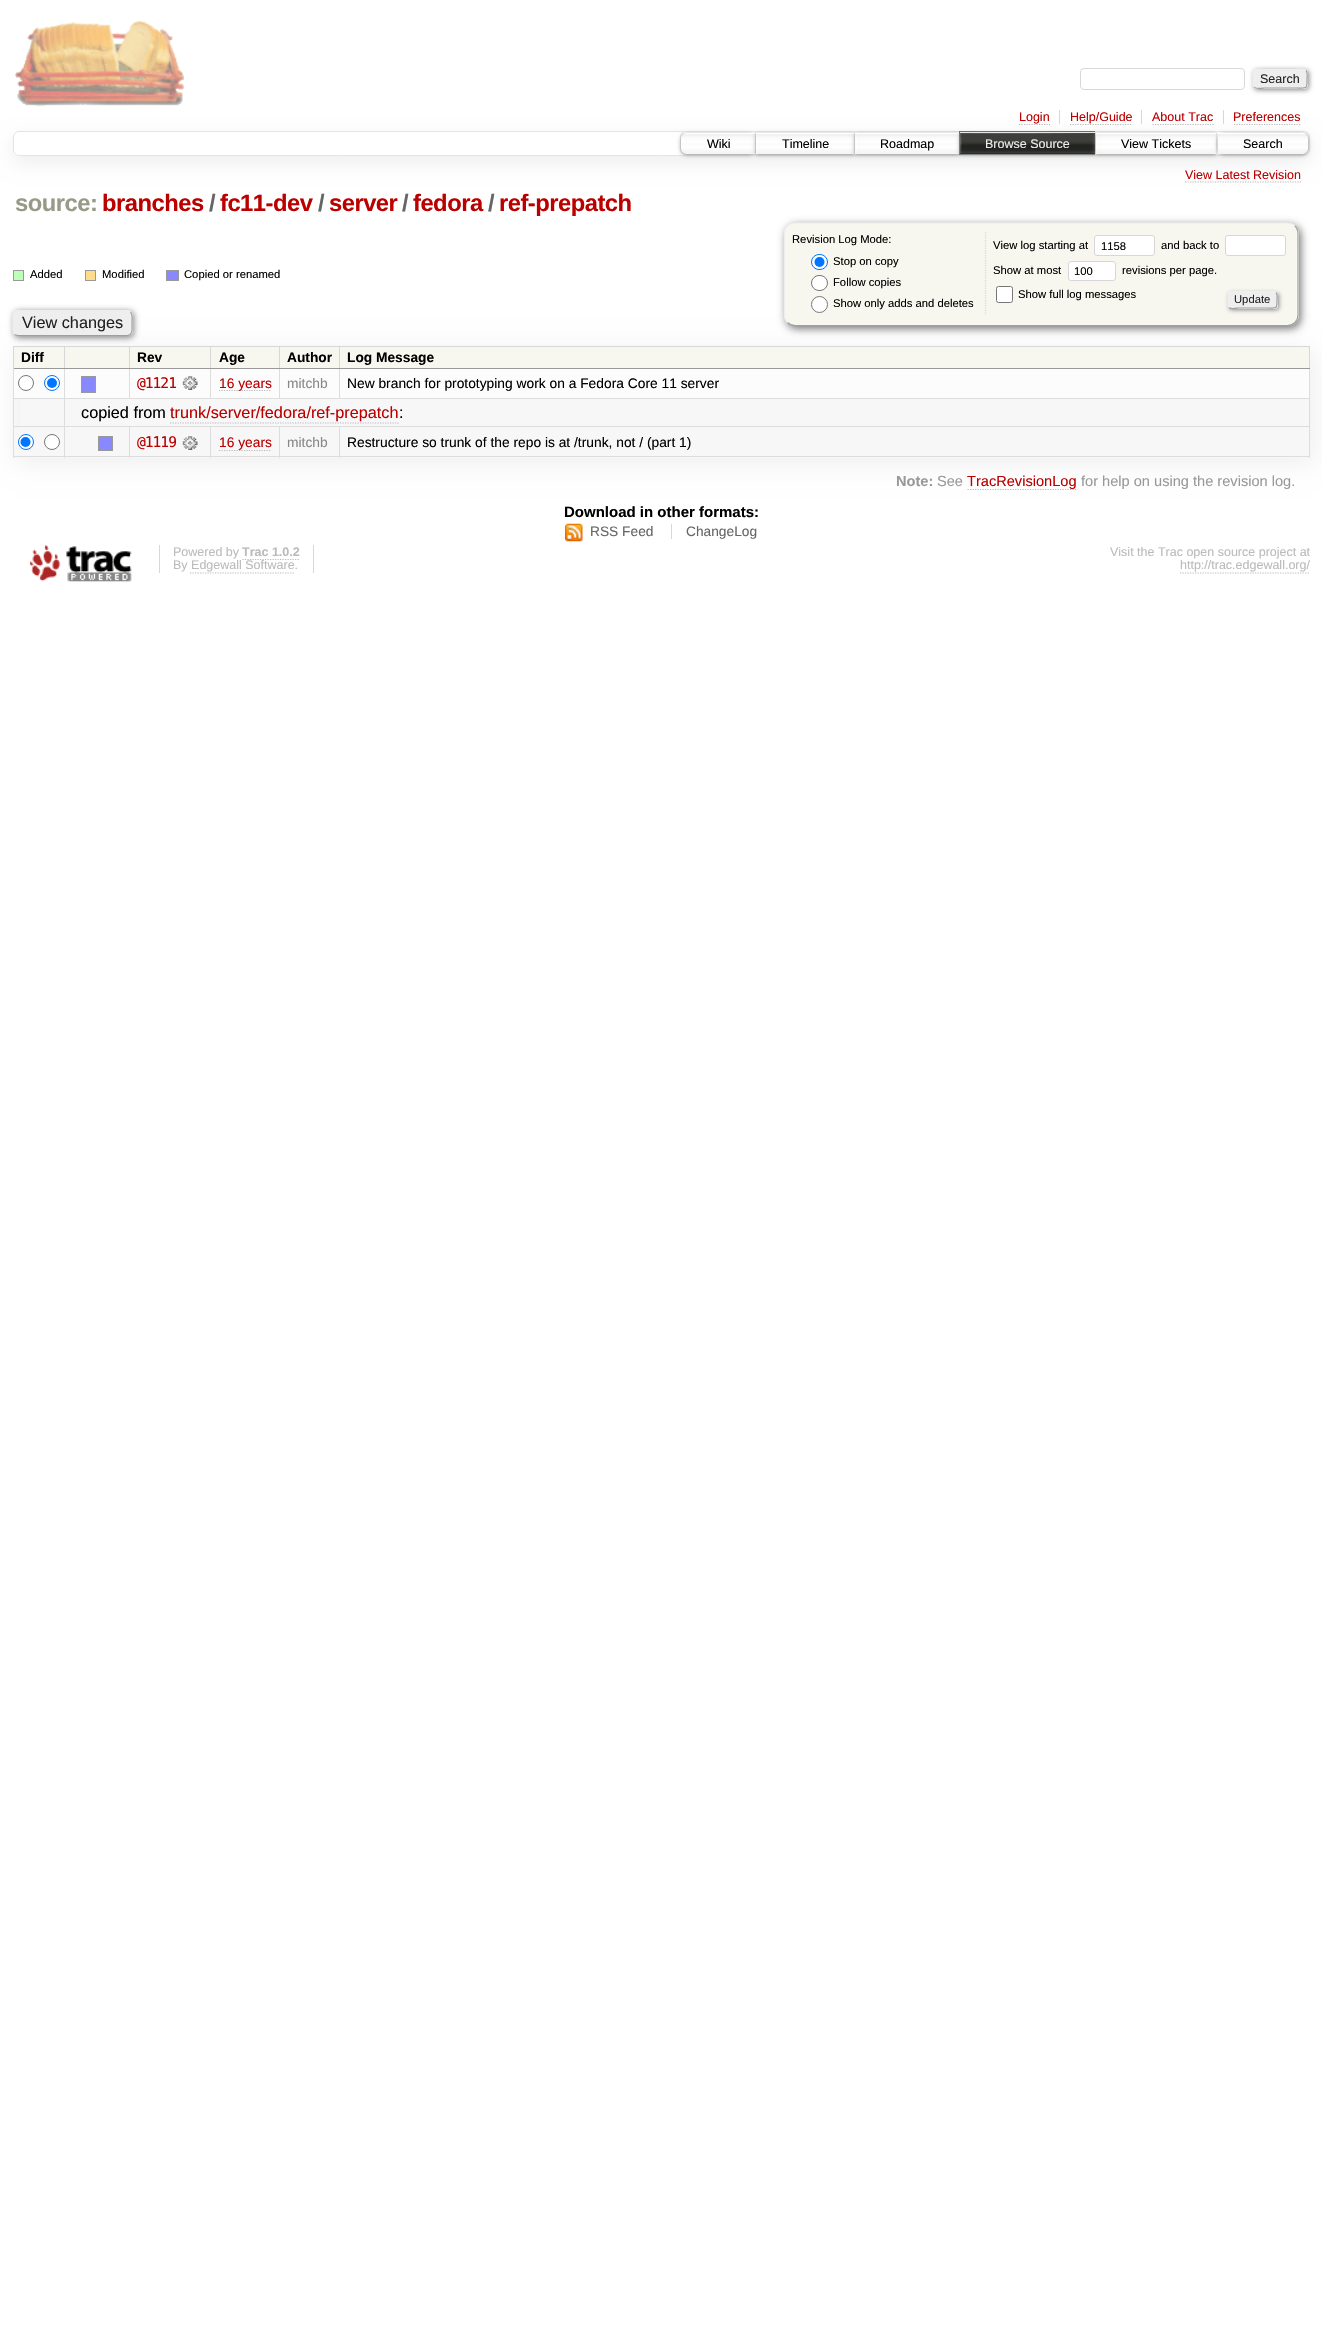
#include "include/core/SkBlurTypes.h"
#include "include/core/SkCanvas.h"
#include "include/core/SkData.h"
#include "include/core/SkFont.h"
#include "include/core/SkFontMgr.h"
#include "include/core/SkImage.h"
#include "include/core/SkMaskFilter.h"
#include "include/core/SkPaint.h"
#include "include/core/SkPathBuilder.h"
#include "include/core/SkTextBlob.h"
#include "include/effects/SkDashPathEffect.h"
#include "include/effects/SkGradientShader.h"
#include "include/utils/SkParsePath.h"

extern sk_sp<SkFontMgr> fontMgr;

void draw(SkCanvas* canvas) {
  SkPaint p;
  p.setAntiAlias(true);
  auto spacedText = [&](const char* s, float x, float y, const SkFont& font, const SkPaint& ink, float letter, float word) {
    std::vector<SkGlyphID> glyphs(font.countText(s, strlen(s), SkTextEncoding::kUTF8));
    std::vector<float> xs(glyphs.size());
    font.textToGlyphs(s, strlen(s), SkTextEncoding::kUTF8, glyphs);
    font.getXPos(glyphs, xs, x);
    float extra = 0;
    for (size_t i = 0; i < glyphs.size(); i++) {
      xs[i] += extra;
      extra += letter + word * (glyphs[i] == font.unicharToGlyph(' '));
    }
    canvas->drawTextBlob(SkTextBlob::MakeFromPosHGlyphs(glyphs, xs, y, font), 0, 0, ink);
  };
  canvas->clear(SK_ColorWHITE);
  canvas->drawImageRect(SkImages::DeferredFromEncodedData(SkData::MakeFromFileName("images/1.png")), SkRect::MakeLTRB(15, 21, 184, 107), SkSamplingOptions());
  p.setStyle(SkPaint::kStroke_Style);
  p.setStrokeWidth(1);
  p.setColor(SkColorSetRGB(215, 215, 215));
  canvas->drawRoundRect(SkRect::MakeLTRB(1080.5f, 68.5f, 1244.5f, 89.5f), 3.5f, 3.5f, p);
  p.setStyle(SkPaint::kFill_Style);
  p.setColor(SkColorSetRGB(136, 136, 136));
  p.setMaskFilter(SkMaskFilter::MakeBlur(kNormal_SkBlurStyle, 2.5f));
  canvas->drawRoundRect(SkRect::MakeLTRB(1254, 70, 1309, 90), 4, 4, p);
  p.setMaskFilter(nullptr);
  p.setColor(SkColorSetRGB(238, 238, 238));
  canvas->drawRoundRect(SkRect::MakeLTRB(1253, 69, 1308, 89), 4, 4, p);
  p.setStyle(SkPaint::kStroke_Style);
  p.setStrokeWidth(1.2f);
  p.setColor(SkColorSetRGB(159, 159, 159));
  canvas->drawPath(SkPathBuilder().moveTo(1306, 70.5f).cubicTo(1308, 72.5f, 1307, 76.5f, 1307, 79).cubicTo(1307, 89.5f, 1307.5f, 88, 1296, 88).lineTo(1264, 88).cubicTo(1263.5f, 88, 1256, 89.5f, 1254, 87).detach(), p);
  p.setColor(SkColorSetRGB(238, 238, 238));
  canvas->drawPath(SkPathBuilder().moveTo(1254, 87).cubicTo(1252, 85, 1253, 81, 1253, 79).cubicTo(1253, 68, 1252.5f, 69.5f, 1264, 69.5f).lineTo(1296, 69.5f).cubicTo(1296.5f, 69.5f, 1304, 68, 1306, 70.5f).detach(), p);
  canvas->save();
  canvas->clipPath(SkPathBuilder(SkPathFillType::kEvenOdd).moveTo(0, 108).lineTo(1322, 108).lineTo(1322, 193).lineTo(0, 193).close().moveTo(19, 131).lineTo(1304, 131).cubicTo(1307.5f, 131, 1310, 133.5f, 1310, 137).lineTo(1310, 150).cubicTo(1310, 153.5f, 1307.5f, 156, 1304, 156).lineTo(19, 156).cubicTo(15.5f, 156, 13, 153.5f, 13, 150).lineTo(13, 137).cubicTo(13, 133.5f, 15.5f, 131, 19, 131).close().detach(), true);
  p.setStyle(SkPaint::kFill_Style);
  p.setMaskFilter(SkMaskFilter::MakeBlur(kNormal_SkBlurStyle, 9.5f));
  canvas->drawRoundRect(SkRect::MakeLTRB(13, 138, 1310, 163), 6, 6, p);
  p.setMaskFilter(nullptr);
  canvas->restore();
  p.setColor(SkColorSetRGB(215, 215, 215));
  canvas->drawRect(SkRect::MakeLTRB(1059, 110, 1060, 124), p);
  p.setStyle(SkPaint::kStroke_Style);
  p.setColor(SkColorSetRGB(187, 187, 187));
  p.setPathEffect(SkDashPathEffect::Make({{1.25f, 1.25f}}, 0));
  canvas->drawPath(SkPathBuilder().moveTo(1019, 124.5f).lineTo(1050, 124.5f).detach(), p);
  p.setPathEffect(nullptr);
  p.setStyle(SkPaint::kFill_Style);
  p.setColor(SkColorSetRGB(215, 215, 215));
  canvas->drawRect(SkRect::MakeLTRB(1141, 110, 1142, 124), p);
  p.setStyle(SkPaint::kStroke_Style);
  p.setColor(SkColorSetRGB(187, 187, 187));
  p.setPathEffect(SkDashPathEffect::Make({{1.25f, 1.25f}}, 0));
  canvas->drawPath(SkPathBuilder().moveTo(1070, 124.5f).lineTo(1132.5f, 124.5f).detach(), p);
  p.setPathEffect(nullptr);
  p.setStyle(SkPaint::kFill_Style);
  p.setColor(SkColorSetRGB(215, 215, 215));
  canvas->drawRect(SkRect::MakeLTRB(1223, 110, 1224, 124), p);
  p.setStyle(SkPaint::kStroke_Style);
  p.setColor(SkColorSetRGB(187, 187, 187));
  p.setPathEffect(SkDashPathEffect::Make({{1.25f, 1.25f}}, 0));
  canvas->drawPath(SkPathBuilder().moveTo(1152.5f, 124.5f).lineTo(1214, 124.5f).detach(), p);
  p.setPathEffect(nullptr);
  p.setPathEffect(SkDashPathEffect::Make({{1.25f, 1.25f}}, 0));
  canvas->drawPath(SkPathBuilder().moveTo(1234, 124.5f).lineTo(1301, 124.5f).detach(), p);
  p.setPathEffect(nullptr);
  p.setStrokeWidth(1);
  p.setColor(SkColorSetRGB(228, 228, 228));
  canvas->drawRoundRect(SkRect::MakeLTRB(13.5f, 131.5f, 1309.5f, 155.5f), 5.5f, 5.5f, p);
  p.setStyle(SkPaint::kFill_Style);
  p.setColor(SK_ColorWHITE);
  canvas->drawPath(SkPathBuilder().moveTo(686, 131).lineTo(756, 131).lineTo(756, 155).lineTo(686, 155).cubicTo(682.5f, 155, 680, 152.5f, 680, 149).lineTo(680, 137).cubicTo(680, 133.5f, 682.5f, 131, 686, 131).close().detach(), p);
  canvas->drawImageRect(SkImages::DeferredFromEncodedData(SkData::MakeFromFileName("images/2.png")), SkRect::MakeLTRB(680, 134, 755, 155), SkSamplingOptions());
  p.setStyle(SkPaint::kStroke_Style);
  p.setColor(SkColorSetRGB(228, 228, 228));
  canvas->drawPath(SkPathBuilder().moveTo(686, 131.5f).lineTo(755.5f, 131.5f).lineTo(755.5f, 154.5f).lineTo(686, 154.5f).cubicTo(683, 154.5f, 680.5f, 152, 680.5f, 149).lineTo(680.5f, 137).cubicTo(680.5f, 134, 683, 131.5f, 686, 131.5f).close().detach(), p);
  canvas->save();
  canvas->clipPath(SkPathBuilder(SkPathFillType::kEvenOdd).moveTo(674, 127).lineTo(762, 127).lineTo(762, 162).lineTo(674, 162).close().moveTo(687, 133).lineTo(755, 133).lineTo(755, 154).lineTo(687, 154).cubicTo(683.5f, 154, 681, 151.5f, 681, 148).lineTo(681, 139).cubicTo(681, 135.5f, 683.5f, 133, 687, 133).close().detach(), true);
  p.setStyle(SkPaint::kFill_Style);
  p.setColor(SkColorSetRGB(153, 153, 153));
  p.setMaskFilter(SkMaskFilter::MakeBlur(kNormal_SkBlurStyle, 2));
  canvas->drawRoundRect(SkRect::MakeLTRB(681, 134, 755, 155), 6, 6, p);
  p.setMaskFilter(nullptr);
  canvas->restore();
  p.setColor(SK_ColorWHITE);
  canvas->drawRect(SkRect::MakeLTRB(756, 134, 759, 154), p);
  canvas->drawImageRect(SkImages::DeferredFromEncodedData(SkData::MakeFromFileName("images/3.png")), SkRect::MakeLTRB(756, 134, 854, 154), SkSamplingOptions());
  p.setStyle(SkPaint::kStroke_Style);
  p.setColor(SkColorSetRGB(228, 228, 228));
  canvas->drawRect(SkRect::MakeLTRB(755.5f, 131.5f, 854.5f, 154.5f), p);
  canvas->save();
  canvas->clipPath(SkPathBuilder(SkPathFillType::kEvenOdd).moveTo(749, 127).lineTo(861, 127).lineTo(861, 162).lineTo(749, 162).close().moveTo(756, 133).lineTo(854, 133).lineTo(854, 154).lineTo(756, 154).close().detach(), true);
  p.setStyle(SkPaint::kFill_Style);
  p.setColor(SkColorSetRGB(153, 153, 153));
  p.setMaskFilter(SkMaskFilter::MakeBlur(kNormal_SkBlurStyle, 2));
  canvas->drawRect(SkRect::MakeLTRB(756, 134, 854, 155), p);
  p.setMaskFilter(nullptr);
  canvas->restore();
  p.setColor(SK_ColorWHITE);
  canvas->drawRect(SkRect::MakeLTRB(855, 132, 858, 154), p);
  canvas->drawImageRect(SkImages::DeferredFromEncodedData(SkData::MakeFromFileName("images/4.png")), SkRect::MakeLTRB(855, 134, 959, 154), SkSamplingOptions());
  p.setStyle(SkPaint::kStroke_Style);
  p.setColor(SkColorSetRGB(228, 228, 228));
  canvas->drawRect(SkRect::MakeLTRB(854.5f, 131.5f, 959.5f, 154.5f), p);
  canvas->save();
  canvas->clipPath(SkPathBuilder(SkPathFillType::kEvenOdd).moveTo(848, 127).lineTo(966, 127).lineTo(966, 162).lineTo(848, 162).close().moveTo(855, 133).lineTo(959, 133).lineTo(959, 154).lineTo(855, 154).close().detach(), true);
  p.setStyle(SkPaint::kFill_Style);
  p.setColor(SkColorSetRGB(153, 153, 153));
  p.setMaskFilter(SkMaskFilter::MakeBlur(kNormal_SkBlurStyle, 2));
  canvas->drawRect(SkRect::MakeLTRB(855, 134, 959, 155), p);
  p.setMaskFilter(nullptr);
  canvas->restore();
  p.setColor(SK_ColorWHITE);
  canvas->drawRect(SkRect::MakeLTRB(960, 132, 961, 133), p);
  p.setStyle(SkPaint::kStroke_Style);
  p.setColor(SkColorSetRGB(102, 102, 102));
  canvas->drawRect(SkRect::MakeLTRB(959.5f, 131.5f, 1095.5f, 154.5f), p);
  p.setStyle(SkPaint::kFill_Style);
  p.setColor(SkColorSetRGB(153, 153, 153));
  p.setMaskFilter(SkMaskFilter::MakeBlur(kNormal_SkBlurStyle, 2));
  canvas->drawRect(SkRect::MakeLTRB(960, 134, 1095, 155), p);
  p.setMaskFilter(nullptr);
  p.setColor(SK_ColorBLACK);
  canvas->drawRect(SkRect::MakeLTRB(960, 133, 1095, 154), p);
  canvas->drawImageRect(SkImages::DeferredFromEncodedData(SkData::MakeFromFileName("images/5.png")), SkRect::MakeLTRB(960, 132, 1095, 154), SkSamplingOptions());
  p.setColor(SK_ColorWHITE);
  canvas->drawRect(SkRect::MakeLTRB(1096, 132, 1099, 154), p);
  canvas->drawImageRect(SkImages::DeferredFromEncodedData(SkData::MakeFromFileName("images/6.png")), SkRect::MakeLTRB(1096, 134, 1216, 154), SkSamplingOptions());
  p.setStyle(SkPaint::kStroke_Style);
  p.setColor(SkColorSetRGB(228, 228, 228));
  canvas->drawRect(SkRect::MakeLTRB(1095.5f, 131.5f, 1217.5f, 154.5f), p);
  canvas->save();
  canvas->clipPath(SkPathBuilder(SkPathFillType::kEvenOdd).moveTo(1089, 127).lineTo(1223, 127).lineTo(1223, 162).lineTo(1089, 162).close().moveTo(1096, 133).lineTo(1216, 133).lineTo(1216, 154).lineTo(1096, 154).close().detach(), true);
  p.setStyle(SkPaint::kFill_Style);
  p.setColor(SkColorSetRGB(153, 153, 153));
  p.setMaskFilter(SkMaskFilter::MakeBlur(kNormal_SkBlurStyle, 2));
  canvas->drawRect(SkRect::MakeLTRB(1096, 134, 1216, 155), p);
  p.setMaskFilter(nullptr);
  canvas->restore();
  p.setColor(SK_ColorWHITE);
  canvas->drawPath(SkPathBuilder().moveTo(1216, 131).lineTo(1303, 131).cubicTo(1306.5f, 131, 1309, 133.5f, 1309, 137).lineTo(1309, 149).cubicTo(1309, 152.5f, 1306.5f, 155, 1303, 155).lineTo(1216, 155).close().detach(), p);
  canvas->drawImageRect(SkImages::DeferredFromEncodedData(SkData::MakeFromFileName("images/7.png")), SkRect::MakeLTRB(1217, 134, 1308, 155), SkSamplingOptions());
  p.setStyle(SkPaint::kStroke_Style);
  p.setColor(SkColorSetRGB(228, 228, 228));
  canvas->drawPath(SkPathBuilder().moveTo(1216.5f, 131.5f).lineTo(1303, 131.5f).cubicTo(1306, 131.5f, 1308.5f, 134, 1308.5f, 137).lineTo(1308.5f, 149).cubicTo(1308.5f, 152, 1306, 154.5f, 1303, 154.5f).lineTo(1216.5f, 154.5f).close().detach(), p);
  canvas->save();
  canvas->clipPath(SkPathBuilder(SkPathFillType::kEvenOdd).moveTo(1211, 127).lineTo(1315, 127).lineTo(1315, 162).lineTo(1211, 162).close().moveTo(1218, 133).lineTo(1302, 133).cubicTo(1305.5f, 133, 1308, 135.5f, 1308, 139).lineTo(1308, 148).cubicTo(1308, 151.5f, 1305.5f, 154, 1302, 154).lineTo(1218, 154).close().detach(), true);
  p.setStyle(SkPaint::kFill_Style);
  p.setColor(SkColorSetRGB(153, 153, 153));
  p.setMaskFilter(SkMaskFilter::MakeBlur(kNormal_SkBlurStyle, 2));
  canvas->drawRoundRect(SkRect::MakeLTRB(1218, 134, 1308, 155), 6, 6, p);
  p.setMaskFilter(nullptr);
  canvas->restore();
  p.setStyle(SkPaint::kStroke_Style);
  p.setStrokeWidth(1.2f);
  p.setColor(SkColorSetRGB(187, 187, 187));
  p.setPathEffect(SkDashPathEffect::Make({{1.25f, 1.25f}}, 0));
  canvas->drawPath(SkPathBuilder().moveTo(1185, 182).lineTo(1301, 182).detach(), p);
  p.setPathEffect(nullptr);
  p.setStyle(SkPaint::kFill_Style);
  p.setColor(SkColorSetRGB(187, 255, 187));
  canvas->drawRect(SkRect::MakeLTRB(13.5f, 270.5f, 23.5f, 280.5f), p);
  p.setStyle(SkPaint::kStroke_Style);
  p.setStrokeWidth(1);
  p.setColor(SkColorSetRGB(153, 153, 153));
  canvas->drawRect(SkRect::MakeLTRB(13.5f, 270.5f, 23.5f, 280.5f), p);
  p.setStyle(SkPaint::kFill_Style);
  p.setColor(SkColorSetRGB(255, 221, 136));
  canvas->drawRect(SkRect::MakeLTRB(85.5f, 270.5f, 95.5f, 280.5f), p);
  p.setStyle(SkPaint::kStroke_Style);
  p.setColor(SkColorSetRGB(153, 153, 153));
  canvas->drawRect(SkRect::MakeLTRB(85.5f, 270.5f, 95.5f, 280.5f), p);
  p.setStyle(SkPaint::kFill_Style);
  p.setColor(SkColorSetRGB(136, 136, 255));
  canvas->drawRect(SkRect::MakeLTRB(166.5f, 270.5f, 178.5f, 280.5f), p);
  p.setStyle(SkPaint::kStroke_Style);
  p.setColor(SkColorSetRGB(153, 153, 153));
  canvas->drawRect(SkRect::MakeLTRB(166.5f, 270.5f, 178.5f, 280.5f), p);
  p.setStyle(SkPaint::kFill_Style);
  p.setColor(SkColorSetRGB(119, 119, 119));
  p.setMaskFilter(SkMaskFilter::MakeBlur(kNormal_SkBlurStyle, 4));
  canvas->drawRoundRect(SkRect::MakeLTRB(786, 225, 1301, 329), 11, 11, p);
  p.setMaskFilter(nullptr);
  p.setColor(SkColorSetRGB(238, 238, 238));
  p.setMaskFilter(SkMaskFilter::MakeBlur(kNormal_SkBlurStyle, 12));
  canvas->drawRect(SkRect::MakeLTRB(16, 351, 1314, 463), p);
  p.setMaskFilter(nullptr);
  p.setColor(SkColorSetRGB(247, 247, 240));
  canvas->drawRoundRect(SkRect::MakeLTRB(784, 223, 1299, 326), 11, 11, p);
  p.setStyle(SkPaint::kStroke_Style);
  p.setStrokeWidth(1.2f);
  p.setColor(SkColorSetRGB(159, 159, 159));
  canvas->drawPath(SkPathBuilder().moveTo(1295, 226).cubicTo(1297, 228, 1298, 231, 1298, 234).lineTo(1298, 315).cubicTo(1298, 318, 1297, 320.5f, 1295, 322.5f).cubicTo(1293, 324.5f, 1290.5f, 325.5f, 1287.5f, 325.5f).lineTo(795, 325.5f).cubicTo(792, 325.5f, 789.5f, 324.5f, 787.5f, 322.5f).detach(), p);
  p.setColor(SkColorSetRGB(238, 238, 238));
  canvas->drawPath(SkPathBuilder().moveTo(787.5f, 322.5f).cubicTo(785.5f, 320.5f, 784.5f, 318, 784.5f, 315).lineTo(784.5f, 234).cubicTo(784.5f, 231, 785.5f, 228, 787.5f, 226).cubicTo(789.5f, 224, 792, 223, 795, 223).lineTo(1287.5f, 223).cubicTo(1290.5f, 223, 1293, 224, 1295, 226).detach(), p);
  p.setColor(SkColorSetRGB(215, 215, 215));
  p.setPathEffect(SkDashPathEffect::Make({{1.25f, 1.25f}}, 0));
  canvas->drawPath(SkPathBuilder().moveTo(985.5f, 232.5f).lineTo(985.5f, 315).detach(), p);
  p.setPathEffect(nullptr);
  p.setStyle(SkPaint::kFill_Style);
  p.setColor(SK_ColorWHITE);
  canvas->drawRoundRect(SkRect::MakeLTRB(811.5f, 254.5f, 827.5f, 269.5f), 7.5f, 7.5f, p);
  p.setStyle(SkPaint::kStroke_Style);
  p.setStrokeWidth(1);
  p.setColor(SkColorSetRGB(0, 117, 255));
  canvas->drawRoundRect(SkRect::MakeLTRB(811.5f, 254.5f, 827.5f, 269.5f), 7.5f, 7.5f, p);
  p.setStyle(SkPaint::kFill_Style);
  canvas->drawCircle(819.5f, 262, 5, p);
  p.setColor(SK_ColorWHITE);
  canvas->drawRoundRect(SkRect::MakeLTRB(811.5f, 275.5f, 827.5f, 290.5f), 7.5f, 7.5f, p);
  p.setStyle(SkPaint::kStroke_Style);
  p.setColor(SkColorSetRGB(118, 118, 118));
  canvas->drawRoundRect(SkRect::MakeLTRB(811.5f, 275.5f, 827.5f, 290.5f), 7.5f, 7.5f, p);
  p.setStyle(SkPaint::kFill_Style);
  p.setColor(SK_ColorWHITE);
  canvas->drawCircle(819.5f, 304.5f, 8, p);
  p.setStyle(SkPaint::kStroke_Style);
  p.setColor(SkColorSetRGB(118, 118, 118));
  canvas->drawCircle(819.5f, 304.5f, 8, p);
  p.setStyle(SkPaint::kFill_Style);
  p.setColor(SK_ColorWHITE);
  canvas->drawRoundRect(SkRect::MakeLTRB(1094.5f, 235.5f, 1154.5f, 255.5f), 2.5f, 2.5f, p);
  p.setStyle(SkPaint::kStroke_Style);
  p.setColor(SkColorSetRGB(215, 215, 215));
  canvas->drawRoundRect(SkRect::MakeLTRB(1094.5f, 235.5f, 1154.5f, 255.5f), 2.5f, 2.5f, p);
  p.setStyle(SkPaint::kFill_Style);
  p.setColor(SK_ColorWHITE);
  canvas->drawRoundRect(SkRect::MakeLTRB(1225.5f, 235.5f, 1285.5f, 255.5f), 2.5f, 2.5f, p);
  p.setStyle(SkPaint::kStroke_Style);
  p.setColor(SkColorSetRGB(215, 215, 215));
  canvas->drawRoundRect(SkRect::MakeLTRB(1225.5f, 235.5f, 1285.5f, 255.5f), 2.5f, 2.5f, p);
  p.setStyle(SkPaint::kFill_Style);
  p.setColor(SK_ColorWHITE);
  canvas->drawRoundRect(SkRect::MakeLTRB(1068.5f, 261.5f, 1115.5f, 280.5f), 2.5f, 2.5f, p);
  p.setStyle(SkPaint::kStroke_Style);
  p.setColor(SkColorSetRGB(215, 215, 215));
  canvas->drawRoundRect(SkRect::MakeLTRB(1068.5f, 261.5f, 1115.5f, 280.5f), 2.5f, 2.5f, p);
  p.setStyle(SkPaint::kFill_Style);
  p.setColor(SK_ColorWHITE);
  canvas->drawRoundRect(SkRect::MakeLTRB(996.5f, 286.5f, 1012.5f, 302.5f), 2, 2, p);
  p.setStyle(SkPaint::kStroke_Style);
  p.setColor(SkColorSetRGB(118, 118, 118));
  canvas->drawRoundRect(SkRect::MakeLTRB(996.5f, 286.5f, 1012.5f, 302.5f), 2, 2, p);
  p.setStyle(SkPaint::kFill_Style);
  p.setColor(SkColorSetRGB(136, 136, 136));
  p.setMaskFilter(SkMaskFilter::MakeBlur(kNormal_SkBlurStyle, 2));
  canvas->drawRoundRect(SkRect::MakeLTRB(1229, 293, 1279, 310), 3, 3, p);
  p.setMaskFilter(nullptr);
  p.setColor(SkColorSetRGB(238, 238, 238));
  canvas->drawRoundRect(SkRect::MakeLTRB(1228, 291, 1278, 309), 3, 3, p);
  p.setStyle(SkPaint::kStroke_Style);
  p.setStrokeWidth(1.2f);
  p.setColor(SkColorSetRGB(159, 159, 159));
  canvas->drawPath(SkPathBuilder().moveTo(1276, 292.5f).cubicTo(1278, 294.5f, 1277, 298, 1277, 300).cubicTo(1277, 309.5f, 1277, 308, 1267, 308).lineTo(1238, 308).cubicTo(1237.5f, 308, 1231, 309.5f, 1229, 307.5f).detach(), p);
  p.setColor(SkColorSetRGB(238, 238, 238));
  canvas->drawPath(SkPathBuilder().moveTo(1229, 307.5f).cubicTo(1227, 305.5f, 1228, 302, 1228, 300).cubicTo(1228, 290.5f, 1228, 292, 1238, 292).lineTo(1267, 292).cubicTo(1267.5f, 292, 1274, 290.5f, 1276, 292.5f).detach(), p);
  p.setStyle(SkPaint::kFill_Style);
  p.setColor(SkColorSetRGB(247, 247, 240));
  canvas->drawRect(SkRect::MakeLTRB(14, 347, 1309, 368), p);
  p.setColor(SkColorSetRGB(215, 215, 215));
  canvas->drawRect(SkRect::MakeLTRB(339, 346, 1310, 347), p);
  p.setColor(SkColorSetRGB(221, 221, 221));
  canvas->drawRect(SkRect::MakeLTRB(13, 398, 1310, 399), p);
  p.setColor(SkColorSetRGB(247, 247, 247));
  canvas->drawRect(SkRect::MakeLTRB(20, 399, 1309, 428), p);
  p.setColor(SkColorSetRGB(221, 221, 221));
  canvas->drawRect(SkRect::MakeLTRB(13, 426, 1310, 427), p);
  canvas->drawRect(SkRect::MakeLTRB(1309, 368, 1310, 458), p);
  p.setColor(SkColorSetRGB(215, 215, 215));
  canvas->drawRect(SkRect::MakeLTRB(1309, 346, 1310, 369), p);
  p.setColor(SkColorSetRGB(252, 252, 252));
  canvas->drawRect(SkRect::MakeLTRB(14, 369, 1309, 398), p);
  p.setColor(SkColorSetRGB(221, 221, 221));
  canvas->drawRect(SkRect::MakeLTRB(339, 368, 340, 399), p);
  p.setColor(SkColorSetRGB(153, 153, 153));
  canvas->drawRect(SkRect::MakeLTRB(339, 368, 1310, 369), p);
  p.setColor(SkColorSetRGB(215, 215, 215));
  canvas->drawRect(SkRect::MakeLTRB(339, 346, 340, 369), p);
  canvas->drawRect(SkRect::MakeLTRB(279, 346, 340, 347), p);
  p.setColor(SkColorSetRGB(221, 221, 221));
  canvas->drawRect(SkRect::MakeLTRB(279, 368, 280, 399), p);
  p.setColor(SkColorSetRGB(153, 153, 153));
  canvas->drawRect(SkRect::MakeLTRB(279, 368, 340, 369), p);
  p.setColor(SkColorSetRGB(215, 215, 215));
  canvas->drawRect(SkRect::MakeLTRB(279, 346, 280, 369), p);
  canvas->drawRect(SkRect::MakeLTRB(210, 346, 280, 347), p);
  p.setColor(SkColorSetRGB(221, 221, 221));
  canvas->drawRect(SkRect::MakeLTRB(210, 368, 211, 399), p);
  p.setColor(SkColorSetRGB(153, 153, 153));
  canvas->drawRect(SkRect::MakeLTRB(210, 368, 280, 369), p);
  p.setColor(SkColorSetRGB(215, 215, 215));
  canvas->drawRect(SkRect::MakeLTRB(210, 346, 211, 369), p);
  canvas->drawRect(SkRect::MakeLTRB(129, 346, 211, 347), p);
  p.setColor(SkColorSetRGB(221, 221, 221));
  canvas->drawRect(SkRect::MakeLTRB(129, 368, 130, 399), p);
  p.setColor(SkColorSetRGB(153, 153, 153));
  canvas->drawRect(SkRect::MakeLTRB(129, 368, 211, 369), p);
  p.setColor(SkColorSetRGB(215, 215, 215));
  canvas->drawRect(SkRect::MakeLTRB(129, 346, 130, 369), p);
  canvas->drawRect(SkRect::MakeLTRB(64, 346, 130, 347), p);
  p.setColor(SkColorSetRGB(247, 247, 247));
  canvas->drawRect(SkRect::MakeLTRB(14, 428, 1309, 458), p);
  p.setColor(SkColorSetRGB(221, 221, 221));
  canvas->drawRect(SkRect::MakeLTRB(339, 456, 1310, 457), p);
  canvas->drawRect(SkRect::MakeLTRB(339, 426, 340, 458), p);
  canvas->drawRect(SkRect::MakeLTRB(279, 456, 340, 457), p);
  canvas->drawRect(SkRect::MakeLTRB(279, 426, 280, 458), p);
  canvas->drawRect(SkRect::MakeLTRB(210, 456, 280, 457), p);
  canvas->drawRect(SkRect::MakeLTRB(210, 426, 211, 458), p);
  canvas->drawRect(SkRect::MakeLTRB(129, 456, 211, 457), p);
  canvas->drawRect(SkRect::MakeLTRB(129, 426, 130, 458), p);
  canvas->drawRect(SkRect::MakeLTRB(64, 456, 130, 457), p);
  canvas->drawRect(SkRect::MakeLTRB(64, 368, 65, 458), p);
  p.setColor(SkColorSetRGB(153, 153, 153));
  canvas->drawRect(SkRect::MakeLTRB(64, 368, 130, 369), p);
  p.setColor(SkColorSetRGB(215, 215, 215));
  canvas->drawRect(SkRect::MakeLTRB(64, 346, 65, 369), p);
  canvas->drawRect(SkRect::MakeLTRB(13, 346, 65, 347), p);
  p.setColor(SkColorSetRGB(221, 221, 221));
  canvas->drawRect(SkRect::MakeLTRB(13, 456, 65, 457), p);
  canvas->drawRect(SkRect::MakeLTRB(13, 368, 14, 458), p);
  p.setColor(SkColorSetRGB(153, 153, 153));
  canvas->drawRect(SkRect::MakeLTRB(13, 368, 65, 369), p);
  p.setColor(SkColorSetRGB(215, 215, 215));
  canvas->drawRect(SkRect::MakeLTRB(13, 346, 14, 369), p);
  p.setColor(SkColorSetRGB(136, 136, 136));
  p.setMaskFilter(SkMaskFilter::MakeBlur(kNormal_SkBlurStyle, 3));
  canvas->drawRoundRect(SkRect::MakeLTRB(14, 311, 134, 338), 5, 5, p);
  p.setMaskFilter(nullptr);
  p.setColor(SkColorSetRGB(238, 238, 238));
  canvas->drawRoundRect(SkRect::MakeLTRB(13, 310, 133, 336), 5, 5, p);
  p.setStyle(SkPaint::kStroke_Style);
  p.setColor(SkColorSetRGB(159, 159, 159));
  canvas->drawPath(SkPathBuilder().moveTo(130.5f, 312).cubicTo(133, 314.5f, 132, 320, 132, 323).cubicTo(132, 326.5f, 133.5f, 335.5f, 127.5f, 335.5f).lineTo(17.5f, 335.5f).lineTo(14.5f, 334.5f).detach(), p);
  p.setColor(SkColorSetRGB(238, 238, 238));
  canvas->drawPath(SkPathBuilder().moveTo(14.5f, 334.5f).cubicTo(12, 332, 13, 326, 13, 323).cubicTo(13, 319.5f, 11.5f, 310.5f, 17.5f, 310.5f).lineTo(127.5f, 310.5f).lineTo(130.5f, 312).detach(), p);
  p.setStyle(SkPaint::kFill_Style);
  p.setColor(SK_ColorWHITE);
  canvas->drawCircle(26, 383, 7.5f, p);
  p.setStyle(SkPaint::kStroke_Style);
  p.setStrokeWidth(1);
  p.setColor(SkColorSetRGB(118, 118, 118));
  canvas->drawCircle(26, 383, 7.5f, p);
  p.setStyle(SkPaint::kFill_Style);
  p.setColor(SK_ColorWHITE);
  canvas->drawCircle(52, 383, 7.5f, p);
  p.setStyle(SkPaint::kStroke_Style);
  p.setColor(SkColorSetRGB(0, 117, 255));
  canvas->drawCircle(52, 383, 7.5f, p);
  p.setStyle(SkPaint::kFill_Style);
  canvas->drawCircle(52, 383, 5, p);
  p.setColor(SkColorSetRGB(136, 136, 255));
  canvas->drawRect(SkRect::MakeLTRB(81.5f, 376.5f, 95.5f, 392.5f), p);
  p.setStyle(SkPaint::kStroke_Style);
  p.setColor(SkColorSetRGB(153, 153, 153));
  canvas->drawRect(SkRect::MakeLTRB(81.5f, 376.5f, 95.5f, 392.5f), p);
  canvas->drawImageRect(SkImages::DeferredFromEncodedData(SkData::MakeFromFileName("images/8.png")), SkRect::MakeLTRB(182, 376, 198, 390), SkSamplingOptions());
  p.setStrokeWidth(1.2f);
  p.setColor(SkColorSetRGB(187, 187, 187));
  p.setPathEffect(SkDashPathEffect::Make({{1.25f, 1.25f}}, 0));
  canvas->drawPath(SkPathBuilder().moveTo(219, 390.5f).lineTo(271, 390.5f).detach(), p);
  p.setPathEffect(nullptr);
  p.setPathEffect(SkDashPathEffect::Make({{1.25f, 1.25f}}, 0));
  canvas->drawPath(SkPathBuilder().moveTo(170, 423).lineTo(399, 423).detach(), p);
  p.setPathEffect(nullptr);
  p.setStyle(SkPaint::kFill_Style);
  p.setColor(SK_ColorWHITE);
  canvas->drawCircle(26, 442, 7.5f, p);
  p.setStyle(SkPaint::kStroke_Style);
  p.setStrokeWidth(1);
  p.setColor(SkColorSetRGB(0, 117, 255));
  canvas->drawCircle(26, 442, 7.5f, p);
  p.setStyle(SkPaint::kFill_Style);
  canvas->drawCircle(25.5f, 442, 5, p);
  p.setColor(SK_ColorWHITE);
  canvas->drawCircle(52, 442, 7.5f, p);
  p.setStyle(SkPaint::kStroke_Style);
  p.setColor(SkColorSetRGB(118, 118, 118));
  canvas->drawCircle(52, 442, 7.5f, p);
  p.setStyle(SkPaint::kFill_Style);
  p.setColor(SkColorSetRGB(136, 136, 255));
  canvas->drawRect(SkRect::MakeLTRB(98.5f, 436.5f, 112.5f, 450.5f), p);
  p.setStyle(SkPaint::kStroke_Style);
  p.setColor(SkColorSetRGB(153, 153, 153));
  canvas->drawRect(SkRect::MakeLTRB(98.5f, 436.5f, 112.5f, 450.5f), p);
  canvas->drawImageRect(SkImages::DeferredFromEncodedData(SkData::MakeFromFileName("images/9.png")), SkRect::MakeLTRB(182, 436, 198, 450), SkSamplingOptions());
  p.setStrokeWidth(1.2f);
  p.setColor(SkColorSetRGB(187, 187, 187));
  p.setPathEffect(SkDashPathEffect::Make({{1.25f, 1.25f}}, 0));
  canvas->drawPath(SkPathBuilder().moveTo(219, 450.5f).lineTo(271, 450.5f).detach(), p);
  p.setPathEffect(nullptr);
  p.setPathEffect(SkDashPathEffect::Make({{1.25f, 1.25f}}, 0));
  canvas->drawPath(SkPathBuilder().moveTo(967.5f, 489.5f).lineTo(1077.5f, 489.5f).detach(), p);
  p.setPathEffect(nullptr);
  canvas->drawImageRect(SkImages::DeferredFromEncodedData(SkData::MakeFromFileName("images/10.png")), SkRect::MakeLTRB(565, 523, 583, 542), SkSamplingOptions());
  p.setStyle(SkPaint::kFill_Style);
  p.setColor(SkColorSetRGB(215, 215, 215));
  canvas->drawRect(SkRect::MakeLTRB(671, 524, 672, 539), p);
  canvas->drawImageRect(SkImages::DeferredFromEncodedData(SkData::MakeFromFileName("images/11.png")), SkRect::MakeLTRB(29, 545, 132, 582), SkSamplingOptions());
  canvas->drawRect(SkRect::MakeLTRB(313, 545, 314, 573), p);
  canvas->drawRect(SkRect::MakeLTRB(159, 545, 160, 573), p);
  p.setStyle(SkPaint::kStroke_Style);
  p.setColor(SkColorSetRGB(187, 187, 187));
  p.setPathEffect(SkDashPathEffect::Make({{1.25f, 1.25f}}, 0));
  canvas->drawPath(SkPathBuilder().moveTo(242.5f, 559.5f).lineTo(300, 559.5f).detach(), p);
  p.setPathEffect(nullptr);
  p.setPathEffect(SkDashPathEffect::Make({{1.25f, 1.25f}}, 0));
  canvas->drawPath(SkPathBuilder().moveTo(190, 573).lineTo(294, 573).detach(), p);
  p.setPathEffect(nullptr);
  p.setPathEffect(SkDashPathEffect::Make({{1.25f, 1.25f}}, 0));
  canvas->drawPath(SkPathBuilder().moveTo(1180, 573).lineTo(1310, 573).detach(), p);
  p.setPathEffect(nullptr);
  SkFont font1(fontMgr->matchFamilyStyle("Liberation Sans", SkFontStyle::Normal()), 12.5f);
  font1.setSubpixel(true);
  p.setStyle(SkPaint::kFill_Style);
  p.setColor(SkColorSetRGB(34, 34, 34));
  canvas->drawString("Search", 1260, 83, font1, p);
  p.setColor(SkColorSetRGB(187, 0, 0));
  canvas->drawString("Login", 1019, 121, font1, p);
  canvas->drawString("Help/Guide", 1070, 121, font1, p);
  canvas->drawString("About Trac", 1152, 121, font1, p);
  canvas->drawString("Preferences", 1233, 121, font1, p);
  p.setColor(SK_ColorBLACK);
  canvas->drawString("Wiki", 707, 148, font1, p);
  canvas->drawString("Timeline", 782, 148, font1, p);
  canvas->drawString("Roadmap", 880, 148, font1, p);
  p.setColor(SkColorSetRGB(238, 238, 238));
  canvas->drawString("Browse Source", 985, 148, font1, p);
  p.setColor(SK_ColorBLACK);
  canvas->drawString("View Tickets", 1121, 148, font1, p);
  canvas->drawString("Search", 1243, 148, font1, p);
  p.setColor(SkColorSetRGB(187, 0, 0));
  canvas->drawString("View Latest Revision", 1185, 179, font1, p);
  SkFont font2(fontMgr->matchFamilyStyle("Liberation Sans", SkFontStyle::Bold()), 23.75f);
  font2.setSubpixel(true);
  p.setColor(SkColorSetRGB(153, 153, 136));
  spacedText("source:", 15, 211, font2, p, -0.5f, 0);
  p.setColor(SkColorSetRGB(187, 0, 0));
  spacedText("branches", 102, 211, font2, p, -0.5f, 0);
  p.setColor(SkColorSetRGB(102, 102, 102));
  spacedText("/", 209, 211, font2, p, -0.5f, 0);
  p.setColor(SkColorSetRGB(187, 0, 0));
  spacedText("fc11-dev", 220, 211, font2, p, -0.5f, 0);
  p.setColor(SkColorSetRGB(102, 102, 102));
  spacedText("/", 318, 211, font2, p, -0.5f, 0);
  p.setColor(SkColorSetRGB(187, 0, 0));
  spacedText("server", 329, 211, font2, p, -0.5f, 0);
  p.setColor(SkColorSetRGB(102, 102, 102));
  spacedText("/", 402, 211, font2, p, -0.5f, 0);
  p.setColor(SkColorSetRGB(187, 0, 0));
  spacedText("fedora", 413, 211, font2, p, -0.5f, 0);
  p.setColor(SkColorSetRGB(102, 102, 102));
  spacedText("/", 488, 211, font2, p, -0.5f, 0);
  p.setColor(SkColorSetRGB(187, 0, 0));
  spacedText("ref-prepatch", 499, 211, font2, p, -0.5f, 0);
  SkFont font3(fontMgr->matchFamilyStyle("Liberation Sans", SkFontStyle::Normal()), 11.25f);
  font3.setSubpixel(true);
  p.setColor(SK_ColorBLACK);
  canvas->drawString("Added", 30, 278, font3, p);
  canvas->drawString("Modified", 102, 278, font3, p);
  canvas->drawString("Copied or renamed", 184, 278, font3, p);
  canvas->drawString("Revision Log Mode:", 792, 243, font3, p);
  canvas->drawString("Stop on copy", 833, 265, font3, p);
  canvas->drawString("Follow copies", 833, 286, font3, p);
  canvas->drawString("Show only adds and deletes", 833, 307, font3, p);
  canvas->drawString("View log starting at", 993, 249, font3, p);
  canvas->drawString("1158", 1101, 250, font3, p);
  canvas->drawString("and back to", 1161, 249, font3, p);
  canvas->drawString("Show at most", 993, 274, font3, p);
  canvas->drawString("100", 1074, 275, font3, p);
  canvas->drawString("revisions per page.", 1122, 274, font3, p);
  canvas->drawString("Show full log messages", 1018, 298, font3, p);
  p.setColor(SkColorSetRGB(34, 34, 34));
  canvas->drawString("Update", 1234, 303, font3, p);
  SkFont font4(fontMgr->matchFamilyStyle("Liberation Sans", SkFontStyle::Normal()), 16.25f);
  font4.setSubpixel(true);
  canvas->drawString("View changes", 22, 328, font4, p);
  SkFont font5(fontMgr->matchFamilyStyle("Liberation Sans", SkFontStyle::Bold()), 13.75f);
  font5.setSubpixel(true);
  p.setColor(SK_ColorBLACK);
  canvas->drawString("Diff", 21, 362, font5, p);
  canvas->drawString("Rev", 137, 362, font5, p);
  canvas->drawString("Age", 219, 362, font5, p);
  canvas->drawString("Author", 287, 362, font5, p);
  canvas->drawString("Log Message", 347, 362, font5, p);
  SkFont font6(fontMgr->matchFamilyStyle("DejaVu Sans Mono", SkFontStyle::Normal()), 14.6f);
  font6.setSubpixel(true);
  p.setColor(SkColorSetRGB(187, 0, 0));
  spacedText("@1121", 137, 388, font6, p, -1, 0);
  SkFont font7(fontMgr->matchFamilyStyle("Liberation Sans", SkFontStyle::Normal()), 13.8f);
  font7.setSubpixel(true);
  canvas->drawString("16 years", 219, 388, font7, p);
  p.setColor(SkColorSetRGB(136, 136, 136));
  canvas->drawString("mitchb", 287, 388, font7, p);
  p.setColor(SK_ColorBLACK);
  canvas->drawString("New branch for prototyping work on a Fedora Core 11 server", 347, 388, font7, p);
  canvas->drawString("copied from", 81, 418, font4, p);
  p.setColor(SkColorSetRGB(187, 0, 0));
  canvas->drawString("trunk/server/fedora/ref-prepatch", 170, 418, font4, p);
  p.setColor(SK_ColorBLACK);
  canvas->drawString(":", 399, 418, font4, p);
  p.setColor(SkColorSetRGB(187, 0, 0));
  spacedText("@1119", 137, 447, font6, p, -1, 0);
  canvas->drawString("16 years", 219, 447, font7, p);
  p.setColor(SkColorSetRGB(136, 136, 136));
  canvas->drawString("mitchb", 287, 447, font7, p);
  p.setColor(SK_ColorBLACK);
  canvas->drawString("Restructure so trunk of the repo is at /trunk, not / (part 1)", 347, 447, font7, p);
  SkFont font8(fontMgr->matchFamilyStyle("Liberation Sans", SkFontStyle::Bold()), 14.6f);
  font8.setSubpixel(true);
  p.setColor(SkColorSetRGB(153, 153, 153));
  canvas->drawString("Note:", 896, 486, font8, p);
  SkFont font9(fontMgr->matchFamilyStyle("Liberation Sans", SkFontStyle::Normal()), 14.6f);
  font9.setSubpixel(true);
  canvas->drawString("See", 937, 486, font9, p);
  p.setColor(SkColorSetRGB(187, 0, 0));
  canvas->drawString("TracRevisionLog", 967, 486, font9, p);
  p.setColor(SkColorSetRGB(153, 153, 153));
  canvas->drawString("for help on using the revision log.", 1081, 486, font9, p);
  SkFont font10(fontMgr->matchFamilyStyle("Liberation Sans", SkFontStyle::Bold()), 15);
  font10.setSubpixel(true);
  p.setColor(SK_ColorBLACK);
  canvas->drawString("Download in other formats:", 564, 517, font10, p);
  SkFont font11(fontMgr->matchFamilyStyle("Liberation Sans", SkFontStyle::Normal()), 13.75f);
  font11.setSubpixel(true);
  p.setColor(SkColorSetRGB(102, 102, 102));
  canvas->drawString("RSS Feed", 590, 536, font11, p);
  canvas->drawString("ChangeLog", 686, 536, font11, p);
  p.setColor(SkColorSetRGB(187, 187, 187));
  canvas->drawString("Powered by", 173, 556, font1, p);
  SkFont font12(fontMgr->matchFamilyStyle("Liberation Sans", SkFontStyle::Bold()), 12.5f);
  font12.setSubpixel(true);
  canvas->drawString("Trac 1.0.2", 242, 556, font12, p);
  canvas->drawString("By Edgewall Software.", 173, 569, font1, p);
  canvas->drawString("Visit the Trac open source project at", 1110, 556, font1, p);
  canvas->drawString("http://trac.edgewall.org/", 1180, 569, font1, p);
}
